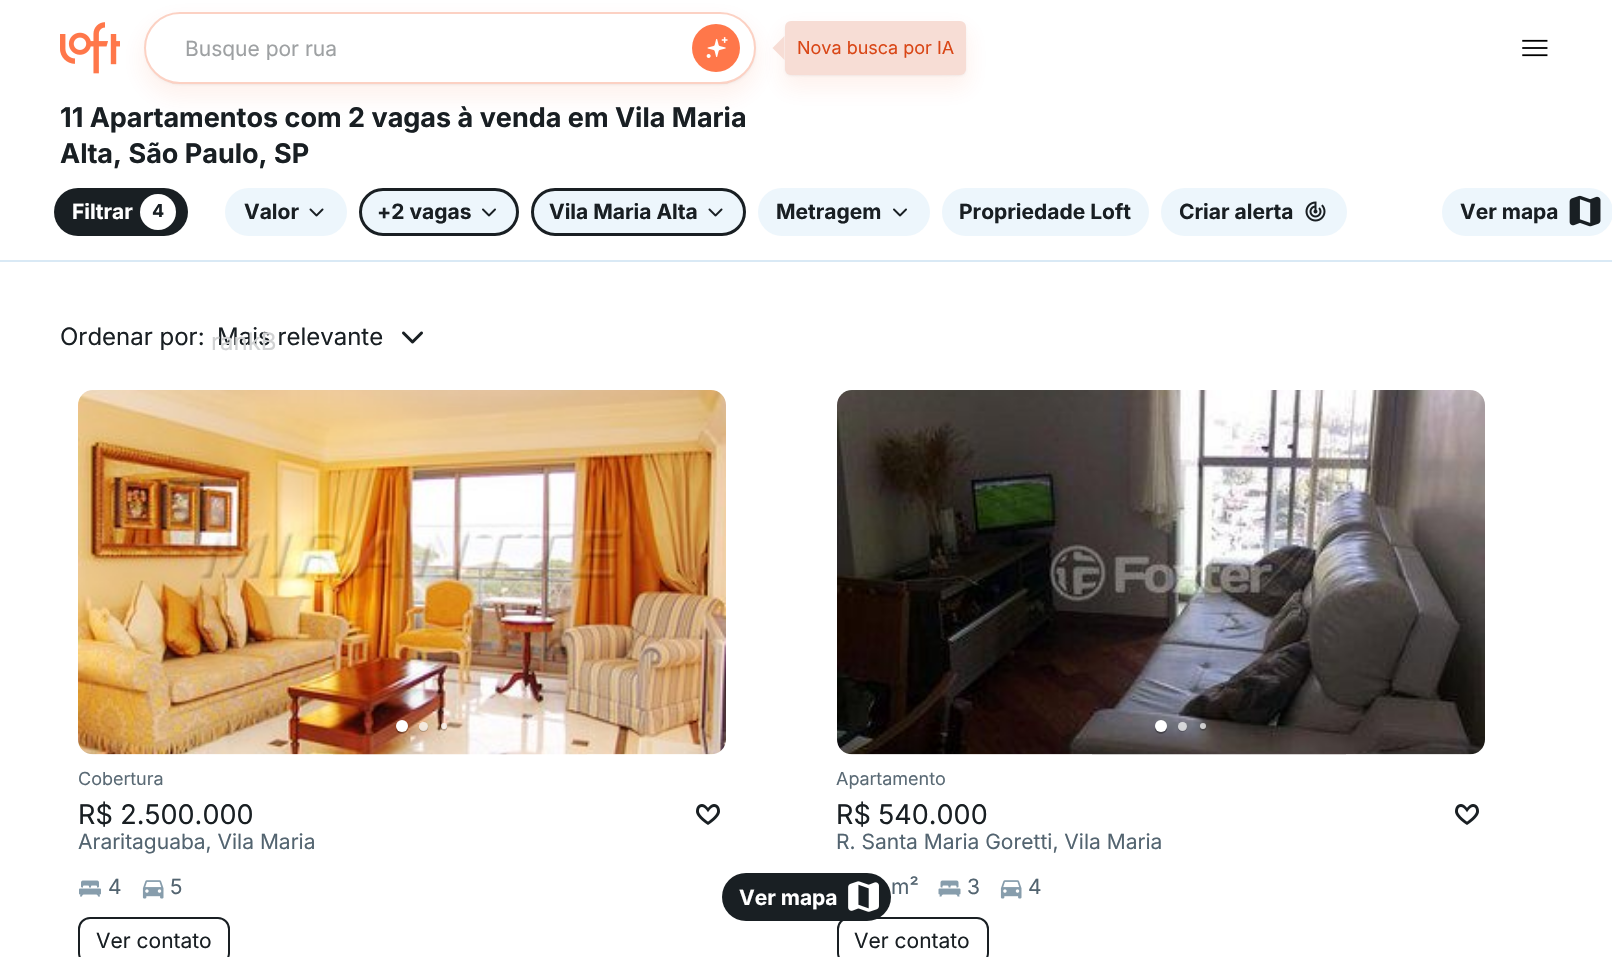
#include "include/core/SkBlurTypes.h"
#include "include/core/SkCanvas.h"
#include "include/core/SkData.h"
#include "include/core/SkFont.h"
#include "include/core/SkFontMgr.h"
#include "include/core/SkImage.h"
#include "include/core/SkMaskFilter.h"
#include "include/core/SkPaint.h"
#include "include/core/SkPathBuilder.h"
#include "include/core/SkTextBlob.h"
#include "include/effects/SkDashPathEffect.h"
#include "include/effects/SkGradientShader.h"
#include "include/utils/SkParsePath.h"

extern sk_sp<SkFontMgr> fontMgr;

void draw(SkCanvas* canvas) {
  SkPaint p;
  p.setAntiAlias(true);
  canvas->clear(SK_ColorWHITE);
  canvas->drawImageRect(SkImages::DeferredFromEncodedData(SkData::MakeFromFileName("images/1.png")), SkRect::MakeLTRB(60, 22, 120, 74), SkSamplingOptions());
  p.setColor(SkColorSetARGB(18, 244, 75, 19));
  p.setMaskFilter(SkMaskFilter::MakeBlur(kNormal_SkBlurStyle, 11));
  canvas->drawRoundRect(SkRect::MakeLTRB(141, 20, 759, 98), 39, 39, p);
  p.setMaskFilter(nullptr);
  p.setColor(SkColorSetARGB(26, 0, 0, 0));
  p.setMaskFilter(SkMaskFilter::MakeBlur(kNormal_SkBlurStyle, 1.5f));
  canvas->drawRoundRect(SkRect::MakeLTRB(146, 15, 755, 84), 34.5f, 34.5f, p);
  p.setMaskFilter(nullptr);
  p.setColor(SK_ColorWHITE);
  canvas->drawRoundRect(SkRect::MakeLTRB(144, 12, 756, 84), 36, 36, p);
  p.setStyle(SkPaint::kStroke_Style);
  p.setStrokeWidth(2);
  p.setColor(SkColorSetARGB(77, 245, 103, 56));
  canvas->drawRoundRect(SkRect::MakeLTRB(145, 13, 755, 83), 35, 35, p);
  p.setStyle(SkPaint::kFill_Style);
  p.setColor(SkColorSetRGB(255, 119, 74));
  canvas->drawCircle(716, 48, 24, p);
  canvas->drawImageRect(SkImages::DeferredFromEncodedData(SkData::MakeFromFileName("images/2.png")), SkRect::MakeLTRB(706, 37, 728, 58), SkSamplingOptions());
  p.setColor(SkColorSetARGB(18, 244, 75, 19));
  p.setMaskFilter(SkMaskFilter::MakeBlur(kNormal_SkBlurStyle, 11));
  canvas->drawRoundRect(SkRect::MakeLTRB(782, 29, 969, 89), 9, 9, p);
  p.setMaskFilter(nullptr);
  p.setColor(SkColorSetARGB(26, 0, 0, 0));
  p.setMaskFilter(SkMaskFilter::MakeBlur(kNormal_SkBlurStyle, 1.5f));
  canvas->drawRoundRect(SkRect::MakeLTRB(786, 24, 965, 75), 5, 5, p);
  p.setMaskFilter(nullptr);
  p.setColor(SkColorSetRGB(247, 221, 213));
  canvas->drawPath(SkPathBuilder().moveTo(784.5f, 36).lineTo(784.5f, 60).lineTo(772.5f, 48).close().detach(), p);
  canvas->drawRoundRect(SkRect::MakeLTRB(785, 21, 966, 75), 6, 6, p);
  canvas->drawImageRect(SkImages::DeferredFromEncodedData(SkData::MakeFromFileName("images/3.png")), SkRect::MakeLTRB(1522, 39, 1548, 57), SkSamplingOptions());
  p.setColor(SkColorSetRGB(217, 233, 245));
  canvas->drawRect(SkRect::MakeLTRB(0, 260, 1612, 262), p);
  p.setColor(SkColorSetRGB(25, 31, 35));
  canvas->drawRoundRect(SkRect::MakeLTRB(54, 188, 188, 236), 24, 24, p);
  p.setColor(SK_ColorWHITE);
  canvas->drawCircle(158, 212, 18, p);
  p.setColor(SkColorSetRGB(237, 246, 252));
  canvas->drawRoundRect(SkRect::MakeLTRB(225, 188, 347, 236), 24, 24, p);
  canvas->drawImageRect(SkImages::DeferredFromEncodedData(SkData::MakeFromFileName("images/4.png")), SkRect::MakeLTRB(309, 208, 324, 217), SkSamplingOptions());
  canvas->drawRoundRect(SkRect::MakeLTRB(360.5f, 189.5f, 517.5f, 234.5f), 22.5f, 22.5f, p);
  p.setStyle(SkPaint::kStroke_Style);
  p.setStrokeWidth(3);
  p.setColor(SkColorSetRGB(25, 31, 35));
  canvas->drawRoundRect(SkRect::MakeLTRB(360.5f, 189.5f, 517.5f, 234.5f), 22.5f, 22.5f, p);
  canvas->drawImageRect(SkImages::DeferredFromEncodedData(SkData::MakeFromFileName("images/5.png")), SkRect::MakeLTRB(482, 208, 496, 217), SkSamplingOptions());
  p.setStyle(SkPaint::kFill_Style);
  p.setColor(SkColorSetRGB(237, 246, 252));
  canvas->drawRoundRect(SkRect::MakeLTRB(532.5f, 189.5f, 744.5f, 234.5f), 22.5f, 22.5f, p);
  p.setStyle(SkPaint::kStroke_Style);
  p.setColor(SkColorSetRGB(25, 31, 35));
  canvas->drawRoundRect(SkRect::MakeLTRB(532.5f, 189.5f, 744.5f, 234.5f), 22.5f, 22.5f, p);
  canvas->drawImageRect(SkImages::DeferredFromEncodedData(SkData::MakeFromFileName("images/4.png")), SkRect::MakeLTRB(708, 208, 723, 217), SkSamplingOptions());
  p.setStyle(SkPaint::kFill_Style);
  p.setColor(SkColorSetRGB(237, 246, 252));
  canvas->drawRoundRect(SkRect::MakeLTRB(758, 188, 930, 236), 24, 24, p);
  canvas->drawImageRect(SkImages::DeferredFromEncodedData(SkData::MakeFromFileName("images/5.png")), SkRect::MakeLTRB(893, 208, 907, 217), SkSamplingOptions());
  canvas->drawRoundRect(SkRect::MakeLTRB(942, 188, 1149, 236), 24, 24, p);
  canvas->drawRoundRect(SkRect::MakeLTRB(1161, 188, 1347, 236), 24, 24, p);
  canvas->drawImageRect(SkImages::DeferredFromEncodedData(SkData::MakeFromFileName("images/6.png")), SkRect::MakeLTRB(1305, 201, 1326, 222), SkSamplingOptions());
  canvas->drawRoundRect(SkRect::MakeLTRB(1442, 188, 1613, 236), 24, 24, p);
  canvas->drawImageRect(SkImages::DeferredFromEncodedData(SkData::MakeFromFileName("images/7.png")), SkRect::MakeLTRB(1569, 195, 1601, 227), SkSamplingOptions());
  canvas->drawImageRect(SkImages::DeferredFromEncodedData(SkData::MakeFromFileName("images/8.png")), SkRect::MakeLTRB(402, 331, 423, 344), SkSamplingOptions());
  canvas->drawImageRect(SkImages::DeferredFromEncodedData(SkData::MakeFromFileName("images/9.png")), SkRect::MakeLTRB(78, 390, 726, 755), SkSamplingOptions());
  p.setColor(SkColorSetARGB(77, 0, 0, 0));
  canvas->drawPath(SkPathBuilder().moveTo(396, 727).cubicTo(394.5f, 736, 409.5f, 736, 408, 727).cubicTo(407, 733.5f, 397, 733.5f, 396, 727).close().detach(), p);
  p.setColor(SK_ColorWHITE);
  canvas->drawCircle(402, 726, 6, p);
  p.setColor(SkColorSetARGB(54, 0, 0, 0));
  canvas->drawPath(SkPathBuilder().moveTo(419, 728).cubicTo(420, 735, 431, 731.5f, 427.5f, 725.5f).cubicTo(428, 730, 421.5f, 732.5f, 419, 728).close().detach(), p);
  p.setColor(SkColorSetARGB(179, 255, 255, 255));
  canvas->drawCircle(423.5f, 726.5f, 4.5f, p);
  p.setColor(SkColorSetARGB(54, 0, 0, 0));
  canvas->drawPath(SkPathBuilder().moveTo(441, 727).cubicTo(439.5f, 732, 448.5f, 732, 447, 727).cubicTo(446, 729.5f, 442, 729.5f, 441, 727).close().detach(), p);
  p.setColor(SkColorSetARGB(179, 255, 255, 255));
  canvas->drawCircle(444, 726, 3, p);
  canvas->drawImageRect(SkImages::DeferredFromEncodedData(SkData::MakeFromFileName("images/10.png")), SkRect::MakeLTRB(696, 804, 720, 825), SkSamplingOptions());
  canvas->drawImageRect(SkImages::DeferredFromEncodedData(SkData::MakeFromFileName("images/11.png")), SkRect::MakeLTRB(79, 880, 101, 897), SkSamplingOptions());
  canvas->drawImageRect(SkImages::DeferredFromEncodedData(SkData::MakeFromFileName("images/12.png")), SkRect::MakeLTRB(142, 880, 164, 899), SkSamplingOptions());
  p.setStyle(SkPaint::kStroke_Style);
  p.setStrokeWidth(2);
  p.setColor(SkColorSetRGB(25, 31, 35));
  canvas->drawRoundRect(SkRect::MakeLTRB(79, 918, 229, 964), 11, 11, p);
  canvas->drawImageRect(SkImages::DeferredFromEncodedData(SkData::MakeFromFileName("images/13.png")), SkRect::MakeLTRB(837, 390, 1485, 755), SkSamplingOptions());
  p.setStyle(SkPaint::kFill_Style);
  p.setColor(SkColorSetARGB(77, 0, 0, 0));
  canvas->drawPath(SkPathBuilder().moveTo(1155, 727).cubicTo(1153.5f, 736, 1168.5f, 736, 1167, 727).cubicTo(1166, 733.5f, 1156, 733.5f, 1155, 727).close().detach(), p);
  p.setColor(SK_ColorWHITE);
  canvas->drawCircle(1161, 726, 6, p);
  p.setColor(SkColorSetARGB(54, 0, 0, 0));
  canvas->drawPath(SkPathBuilder().moveTo(1178, 728).cubicTo(1179, 735, 1190, 731.5f, 1186.5f, 725.5f).cubicTo(1187, 730, 1180.5f, 732.5f, 1178, 728).close().detach(), p);
  p.setColor(SkColorSetARGB(179, 255, 255, 255));
  canvas->drawCircle(1182.5f, 726.5f, 4.5f, p);
  p.setColor(SkColorSetARGB(54, 0, 0, 0));
  canvas->drawPath(SkPathBuilder().moveTo(1200, 727).cubicTo(1198.5f, 732, 1207.5f, 732, 1206, 727).cubicTo(1205, 729.5f, 1201, 729.5f, 1200, 727).close().detach(), p);
  p.setColor(SkColorSetARGB(179, 255, 255, 255));
  canvas->drawCircle(1203, 726, 3, p);
  canvas->drawImageRect(SkImages::DeferredFromEncodedData(SkData::MakeFromFileName("images/10.png")), SkRect::MakeLTRB(1455, 804, 1479, 825), SkSamplingOptions());
  canvas->drawImageRect(SkImages::DeferredFromEncodedData(SkData::MakeFromFileName("images/14.png")), SkRect::MakeLTRB(938, 880, 961, 897), SkSamplingOptions());
  canvas->drawImageRect(SkImages::DeferredFromEncodedData(SkData::MakeFromFileName("images/12.png")), SkRect::MakeLTRB(1000, 880, 1022, 899), SkSamplingOptions());
  p.setStyle(SkPaint::kStroke_Style);
  p.setColor(SkColorSetRGB(25, 31, 35));
  canvas->drawRoundRect(SkRect::MakeLTRB(838, 918, 988, 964), 11, 11, p);
  p.setStyle(SkPaint::kFill_Style);
  canvas->drawRoundRect(SkRect::MakeLTRB(722, 873, 891, 921), 24, 24, p);
  canvas->drawImageRect(SkImages::DeferredFromEncodedData(SkData::MakeFromFileName("images/15.png")), SkRect::MakeLTRB(848, 881, 879, 912), SkSamplingOptions());
  canvas->save();
  canvas->clipRect(SkRect::MakeLTRB(185, 35, 656, 60));
  SkFont font1(fontMgr->matchFamilyStyle("Inter", SkFontStyle::Normal()), 21);
  font1.setSubpixel(true);
  p.setColor(SkColorSetRGB(158, 161, 163));
  canvas->drawString("Busque por rua", 185, 56, font1, p);
  canvas->restore();
  SkFont font2(fontMgr->matchFamilyStyle("Inter", SkFontStyle::Normal()), 18);
  font2.setSubpixel(true);
  p.setColor(SkColorSetRGB(217, 70, 22));
  canvas->drawString("Nova busca por IA", 797, 54, font2, p);
  SkFont font3(fontMgr->matchFamilyStyle("Inter", SkFontStyle::Bold()), 27);
  font3.setSubpixel(true);
  p.setColor(SkColorSetRGB(25, 31, 35));
  canvas->drawString("11 Apartamentos com 2 vagas à venda em Vila Maria", 60, 127, font3, p);
  canvas->drawString("Alta, São Paulo, SP", 60, 163, font3, p);
  SkFont font4(fontMgr->matchFamilyStyle("Inter", SkFontStyle::Bold()), 21);
  font4.setSubpixel(true);
  p.setColor(SK_ColorWHITE);
  canvas->drawString("Filtrar", 72, 219, font4, p);
  SkFont font5(fontMgr->matchFamilyStyle("Inter", SkFontStyle::Bold()), 18);
  font5.setSubpixel(true);
  p.setColor(SkColorSetRGB(25, 31, 35));
  canvas->drawString("4", 152, 217, font5, p);
  canvas->drawString("Valor", 244, 219, font4, p);
  canvas->drawString("+2 vagas", 377, 219, font4, p);
  canvas->drawString("Vila Maria Alta", 549, 219, font4, p);
  canvas->drawString("Metragem", 776, 219, font4, p);
  canvas->drawString("Propriedade Loft", 959, 219, font4, p);
  canvas->drawString("Criar alerta", 1179, 219, font4, p);
  canvas->drawString("Ver mapa", 1460, 219, font4, p);
  SkFont font6(fontMgr->matchFamilyStyle("Inter", SkFontStyle::Normal()), 24);
  font6.setSubpixel(true);
  canvas->drawString("Ordenar por:", 60, 345, font6, p);
  canvas->drawString("Mais relevante", 217, 345, font6, p);
  p.setColor(SkColorSetRGB(209, 210, 211));
  canvas->drawString("rankB", 211, 350, font6, p);
  p.setColor(SkColorSetRGB(90, 106, 117));
  canvas->drawString("Cobertura", 78, 785, font2, p);
  SkFont font7(fontMgr->matchFamilyStyle("Inter", SkFontStyle::Normal()), 27);
  font7.setSubpixel(true);
  p.setColor(SkColorSetRGB(25, 31, 35));
  canvas->drawString("R$ 2.500.000", 78, 824, font7, p);
  p.setColor(SkColorSetRGB(83, 100, 112));
  canvas->drawString("Araritaguaba, Vila Maria", 78, 849, font1, p);
  canvas->drawString("4", 108, 894, font1, p);
  canvas->drawString("5", 170, 894, font1, p);
  p.setColor(SkColorSetRGB(25, 31, 35));
  canvas->drawString("Ver contato", 96, 948, font1, p);
  p.setColor(SkColorSetRGB(90, 106, 117));
  canvas->drawString("Apartamento", 836, 785, font2, p);
  p.setColor(SkColorSetRGB(25, 31, 35));
  canvas->drawString("R$ 540.000", 836, 824, font7, p);
  p.setColor(SkColorSetRGB(83, 100, 112));
  canvas->drawString("R. Santa Maria Goretti, Vila Maria", 836, 849, font1, p);
  canvas->drawString("m²", 891, 894, font1, p);
  canvas->drawString("3", 967, 894, font1, p);
  canvas->drawString("4", 1028, 894, font1, p);
  p.setColor(SkColorSetRGB(25, 31, 35));
  canvas->drawString("Ver contato", 854, 948, font1, p);
  p.setColor(SK_ColorWHITE);
  canvas->drawString("Ver mapa", 739, 905, font4, p);
}
